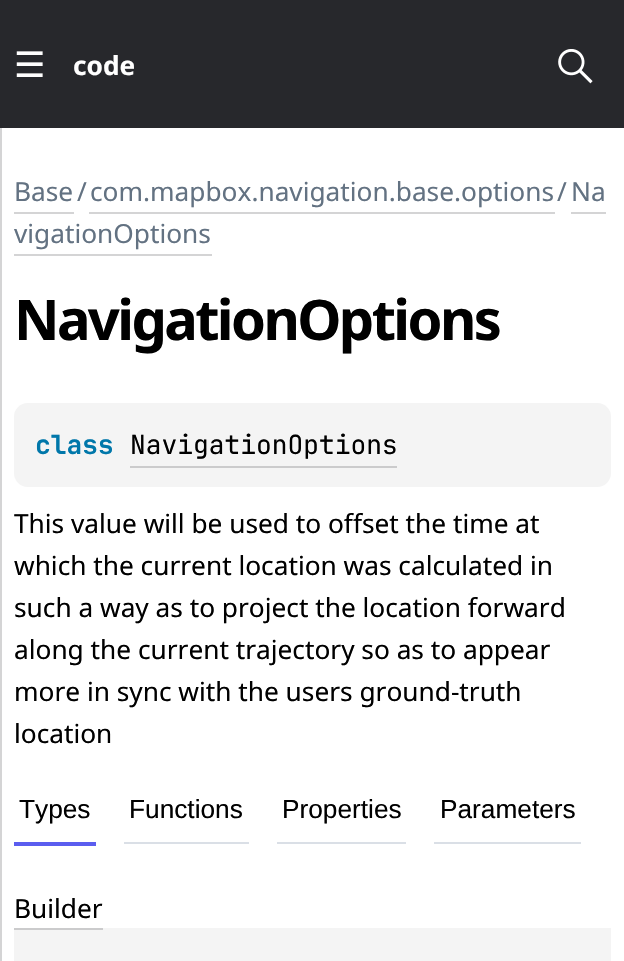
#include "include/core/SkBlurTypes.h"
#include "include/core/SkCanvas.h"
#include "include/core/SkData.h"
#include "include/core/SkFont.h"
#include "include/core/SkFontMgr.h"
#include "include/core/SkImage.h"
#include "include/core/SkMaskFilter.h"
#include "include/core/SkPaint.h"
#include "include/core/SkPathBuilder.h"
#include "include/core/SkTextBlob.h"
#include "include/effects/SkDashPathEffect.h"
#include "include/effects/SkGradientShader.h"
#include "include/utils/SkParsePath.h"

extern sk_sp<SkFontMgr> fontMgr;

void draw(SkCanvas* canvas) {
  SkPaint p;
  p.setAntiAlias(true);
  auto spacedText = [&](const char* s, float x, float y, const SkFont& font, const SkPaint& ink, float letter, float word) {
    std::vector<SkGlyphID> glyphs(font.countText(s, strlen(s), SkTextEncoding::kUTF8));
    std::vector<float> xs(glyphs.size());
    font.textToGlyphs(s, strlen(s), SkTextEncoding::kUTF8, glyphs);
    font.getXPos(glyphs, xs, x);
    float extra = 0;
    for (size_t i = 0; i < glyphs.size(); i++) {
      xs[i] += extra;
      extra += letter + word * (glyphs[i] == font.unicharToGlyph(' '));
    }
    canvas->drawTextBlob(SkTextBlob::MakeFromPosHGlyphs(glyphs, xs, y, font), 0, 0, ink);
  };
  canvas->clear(SK_ColorWHITE);
  p.setColor(SkColorSetRGB(39, 40, 44));
  canvas->drawRect(SkRect::MakeLTRB(0, 0, 624, 128), p);
  canvas->drawImageRect(SkImages::DeferredFromEncodedData(SkData::MakeFromFileName("images/1.png")), SkRect::MakeLTRB(558, 49, 593, 84), SkSamplingOptions());
  p.setColor(SkColorSetRGB(212, 212, 213));
  canvas->drawRect(SkRect::MakeLTRB(0, 128, 2, 961), p);
  canvas->drawRect(SkRect::MakeLTRB(14, 212, 74, 214), p);
  canvas->drawRect(SkRect::MakeLTRB(89, 212, 555, 214), p);
  canvas->drawRect(SkRect::MakeLTRB(571, 212, 606, 214), p);
  canvas->drawRect(SkRect::MakeLTRB(14, 254, 212, 256), p);
  p.setColor(SkColorSetRGB(244, 244, 244));
  canvas->drawRoundRect(SkRect::MakeLTRB(14, 403, 611, 487), 14, 14, p);
  p.setColor(SkColorSetRGB(203, 203, 204));
  canvas->drawRect(SkRect::MakeLTRB(130, 466, 397, 468), p);
  p.setColor(SkColorSetRGB(91, 93, 239));
  canvas->drawRect(SkRect::MakeLTRB(14, 842, 96, 846), p);
  p.setColor(SkColorSetRGB(218, 223, 230));
  canvas->drawRect(SkRect::MakeLTRB(124, 842, 249, 844), p);
  canvas->drawRect(SkRect::MakeLTRB(277, 842, 406, 844), p);
  canvas->drawRect(SkRect::MakeLTRB(434, 842, 581, 844), p);
  p.setColor(SkColorSetRGB(212, 212, 213));
  canvas->drawRect(SkRect::MakeLTRB(14, 928, 103, 930), p);
  p.setColor(SkColorSetARGB(13, 39, 40, 44));
  canvas->drawRect(SkRect::MakeLTRB(14, 928, 611, 961), p);
  SkFont font1(fontMgr->matchFamilyStyle("DejaVu Sans", SkFontStyle::Normal()), 35);
  font1.setSubpixel(true);
  p.setColor(SK_ColorWHITE);
  canvas->drawString("☰", 14, 77, font1, p);
  SkFont font2(fontMgr->matchFamilyStyle("Noto Sans", SkFontStyle::Bold()), 26.25f);
  font2.setSubpixel(true);
  canvas->drawString("code", 73, 75, font2, p);
  SkFont font3(fontMgr->matchFamilyStyle("Noto Sans", SkFontStyle::Normal()), 26.25f);
  font3.setSubpixel(true);
  p.setColor(SkColorSetRGB(99, 114, 130));
  canvas->drawString("Base", 14, 201, font3, p);
  canvas->drawString("/", 77, 201, font3, p);
  canvas->drawString("com.mapbox.navigation.base.options", 90, 201, font3, p);
  canvas->drawString("/", 557, 201, font3, p);
  canvas->drawString("Na", 571, 201, font3, p);
  canvas->drawString("vigationOptions", 14, 243, font3, p);
  SkFont font4(fontMgr->matchFamilyStyle("Noto Sans", SkFontStyle::Bold()), 56);
  font4.setSubpixel(true);
  p.setColor(SK_ColorBLACK);
  spacedText("NavigationOptions", 14, 340, font4, p, -2.6f, 0);
  SkFont font5(fontMgr->matchFamilyStyle("JetBrains Mono", SkFontStyle::Bold()), 26.25f);
  font5.setSubpixel(true);
  p.setColor(SkColorSetRGB(0, 119, 170));
  canvas->drawString("class", 35, 454, font5, p);
  SkFont font6(fontMgr->matchFamilyStyle("JetBrains Mono", SkFontStyle::Normal()), 26.25f);
  font6.setSubpixel(true);
  p.setColor(SK_ColorBLACK);
  canvas->drawString("NavigationOptions", 130, 454, font6, p);
  canvas->drawString("This value will be used to offset the time at", 14, 533, font3, p);
  canvas->drawString("which the current location was calculated in", 14, 575, font3, p);
  canvas->drawString("such a way as to project the location forward", 14, 617, font3, p);
  canvas->drawString("along the current trajectory so as to appear", 14, 659, font3, p);
  canvas->drawString("more in sync with the users ground-truth", 14, 701, font3, p);
  canvas->drawString("location", 14, 743, font3, p);
  SkFont font7(fontMgr->matchFamilyStyle("Liberation Sans", SkFontStyle::Normal()), 26.25f);
  font7.setSubpixel(true);
  canvas->drawString("Types", 19, 818, font7, p);
  canvas->drawString("Functions", 129, 818, font7, p);
  canvas->drawString("Properties", 282, 818, font7, p);
  canvas->drawString("Parameters", 440, 818, font7, p);
  canvas->drawString("Builder", 14, 918, font3, p);
}
